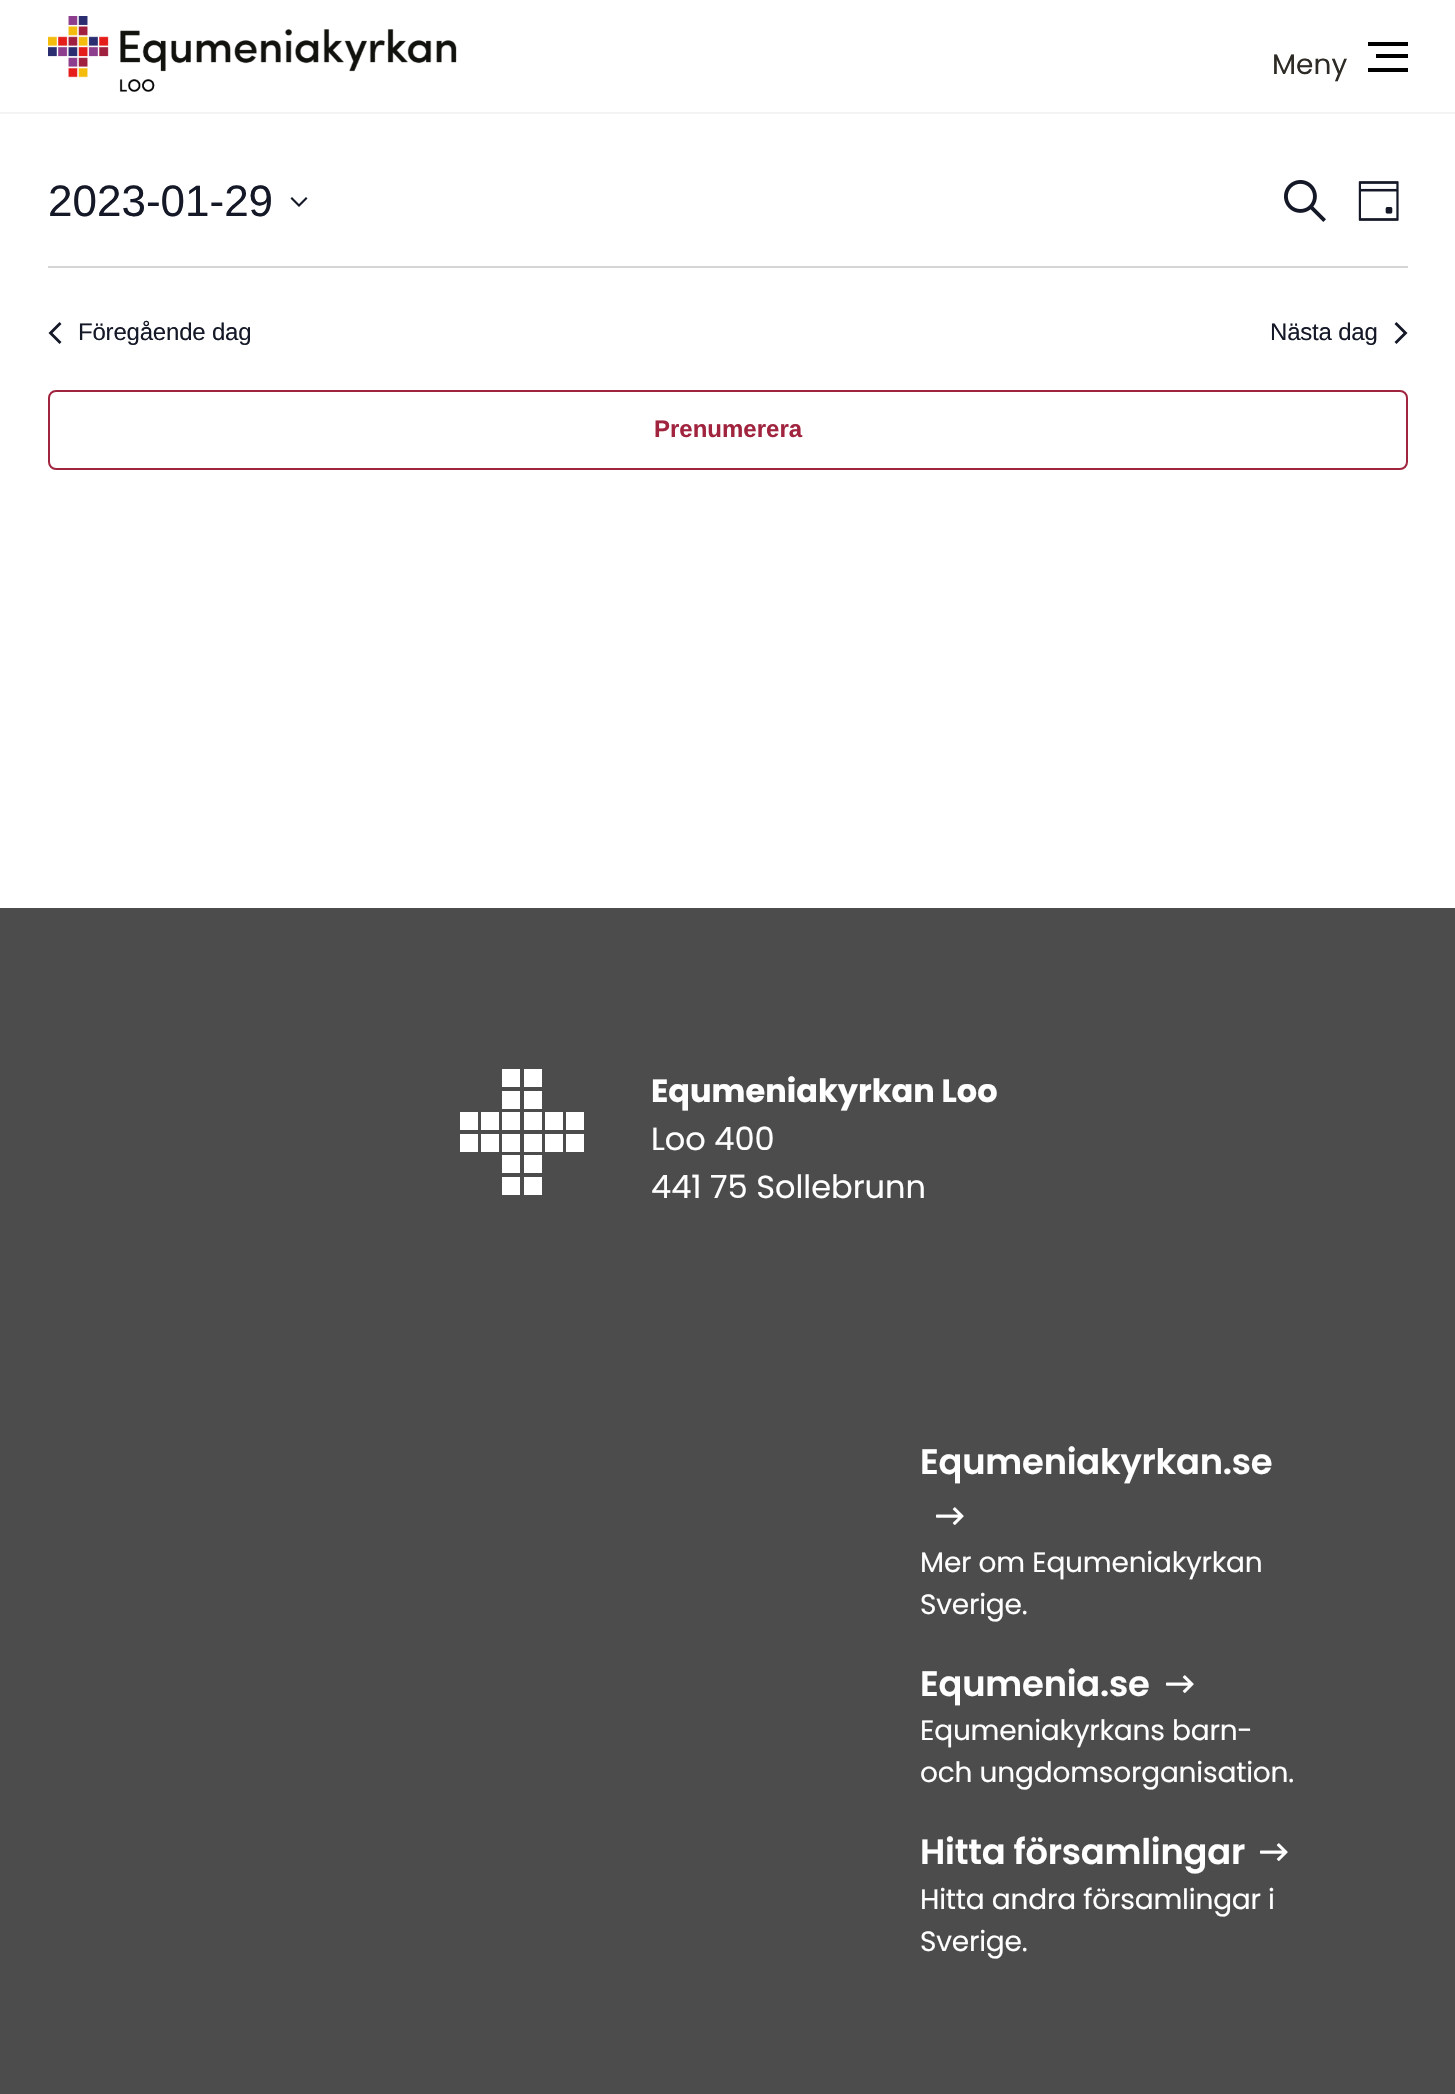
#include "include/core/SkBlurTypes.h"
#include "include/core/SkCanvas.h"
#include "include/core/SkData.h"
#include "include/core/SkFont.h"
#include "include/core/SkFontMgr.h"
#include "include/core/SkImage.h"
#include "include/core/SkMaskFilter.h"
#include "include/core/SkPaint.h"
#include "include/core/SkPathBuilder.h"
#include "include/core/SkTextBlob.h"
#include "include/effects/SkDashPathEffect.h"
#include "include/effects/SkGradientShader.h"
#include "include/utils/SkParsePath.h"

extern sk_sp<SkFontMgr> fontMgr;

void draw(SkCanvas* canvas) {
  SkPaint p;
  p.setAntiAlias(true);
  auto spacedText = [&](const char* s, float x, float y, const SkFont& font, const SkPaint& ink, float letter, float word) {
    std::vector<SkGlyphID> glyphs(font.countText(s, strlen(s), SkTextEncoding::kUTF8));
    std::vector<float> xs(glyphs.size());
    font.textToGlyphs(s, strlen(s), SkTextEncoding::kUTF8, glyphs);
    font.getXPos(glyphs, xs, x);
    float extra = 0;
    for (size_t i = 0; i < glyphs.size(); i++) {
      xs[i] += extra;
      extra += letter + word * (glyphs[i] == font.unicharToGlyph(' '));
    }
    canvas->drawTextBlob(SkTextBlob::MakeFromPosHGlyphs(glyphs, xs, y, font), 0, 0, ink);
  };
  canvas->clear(SK_ColorWHITE);
  p.setColor(SkColorSetRGB(243, 243, 243));
  canvas->drawRect(SkRect::MakeLTRB(0, 112, 1455, 114), p);
  canvas->drawImageRect(SkImages::DeferredFromEncodedData(SkData::MakeFromFileName("images/1.png")), SkRect::MakeLTRB(48, 16, 457, 92), SkSamplingOptions());
  p.setColor(SK_ColorBLACK);
  canvas->drawRect(SkRect::MakeLTRB(1368, 42, 1408, 46), p);
  canvas->drawRect(SkRect::MakeLTRB(1376, 54, 1408, 58), p);
  canvas->drawRect(SkRect::MakeLTRB(1368, 68, 1408, 72), p);
  p.setColor(SkColorSetRGB(20, 24, 39));
  canvas->drawPath(SkPathBuilder(SkPathFillType::kEvenOdd).moveTo(292, 197).lineTo(299, 204).lineTo(306, 197).lineTo(307.5f, 198.5f).lineTo(299, 207).lineTo(290.5f, 198.5f).close().detach(), p);
  canvas->drawImageRect(SkImages::DeferredFromEncodedData(SkData::MakeFromFileName("images/2.png")), SkRect::MakeLTRB(1284, 180, 1326, 222), SkSamplingOptions());
  canvas->drawImageRect(SkImages::DeferredFromEncodedData(SkData::MakeFromFileName("images/3.png")), SkRect::MakeLTRB(1358, 181, 1399, 221), SkSamplingOptions());
  p.setColor(SkColorSetRGB(213, 213, 213));
  canvas->drawRect(SkRect::MakeLTRB(48, 266, 1408, 268), p);
  p.setColor(SkColorSetRGB(20, 24, 39));
  canvas->drawPath(SkPathBuilder().moveTo(61.5f, 342).lineTo(59.5f, 344).lineTo(48.5f, 333).lineTo(59.5f, 322).lineTo(61.5f, 324).lineTo(52.5f, 333).close().detach(), p);
  canvas->drawPath(SkPathBuilder().moveTo(1394.5f, 324).lineTo(1396.5f, 322).lineTo(1407.5f, 333).lineTo(1396.5f, 344).lineTo(1394.5f, 342).lineTo(1403.5f, 333).close().detach(), p);
  p.setStyle(SkPaint::kStroke_Style);
  p.setStrokeWidth(2);
  p.setColor(SkColorSetRGB(161, 36, 63));
  canvas->drawRoundRect(SkRect::MakeLTRB(49, 391, 1407, 469), 7, 7, p);
  p.setStyle(SkPaint::kFill_Style);
  p.setColor(SkColorSetRGB(77, 76, 76));
  canvas->drawRect(SkRect::MakeLTRB(0, 908, 1455, 2094), p);
  p.setColor(SK_ColorWHITE);
  canvas->drawRect(SkRect::MakeLTRB(502, 1069, 520, 1087), p);
  canvas->drawRect(SkRect::MakeLTRB(524, 1069, 542, 1087), p);
  canvas->drawRect(SkRect::MakeLTRB(502, 1091, 520, 1109), p);
  canvas->drawRect(SkRect::MakeLTRB(524, 1091, 542, 1109), p);
  canvas->drawRect(SkRect::MakeLTRB(460, 1112, 478, 1130), p);
  canvas->drawRect(SkRect::MakeLTRB(481, 1112, 499, 1130), p);
  canvas->drawRect(SkRect::MakeLTRB(502, 1112, 520, 1130), p);
  canvas->drawRect(SkRect::MakeLTRB(524, 1112, 542, 1130), p);
  canvas->drawRect(SkRect::MakeLTRB(545, 1112, 563, 1130), p);
  canvas->drawRect(SkRect::MakeLTRB(566, 1112, 584, 1130), p);
  canvas->drawRect(SkRect::MakeLTRB(460, 1134, 478, 1152), p);
  canvas->drawRect(SkRect::MakeLTRB(481, 1134, 499, 1152), p);
  canvas->drawRect(SkRect::MakeLTRB(502, 1134, 520, 1152), p);
  canvas->drawRect(SkRect::MakeLTRB(524, 1134, 542, 1152), p);
  canvas->drawRect(SkRect::MakeLTRB(545, 1134, 563, 1152), p);
  canvas->drawRect(SkRect::MakeLTRB(566, 1134, 584, 1152), p);
  canvas->drawRect(SkRect::MakeLTRB(502, 1155, 520, 1173), p);
  canvas->drawRect(SkRect::MakeLTRB(524, 1155, 542, 1173), p);
  canvas->drawRect(SkRect::MakeLTRB(502, 1177, 520, 1195), p);
  canvas->drawRect(SkRect::MakeLTRB(524, 1177, 542, 1195), p);
  canvas->drawImageRect(SkImages::DeferredFromEncodedData(SkData::MakeFromFileName("images/4.png")), SkRect::MakeLTRB(936, 1507, 964, 1525), SkSamplingOptions());
  canvas->drawImageRect(SkImages::DeferredFromEncodedData(SkData::MakeFromFileName("images/4.png")), SkRect::MakeLTRB(1166, 1675, 1194, 1693), SkSamplingOptions());
  canvas->drawImageRect(SkImages::DeferredFromEncodedData(SkData::MakeFromFileName("images/4.png")), SkRect::MakeLTRB(1260, 1843, 1288, 1861), SkSamplingOptions());
  SkFont font1(fontMgr->matchFamilyStyle("Poppins", SkFontStyle::Normal()), 28);
  font1.setSubpixel(true);
  p.setColor(SkColorSetRGB(46, 42, 37));
  canvas->drawString("Meny", 1272, 74, font1, p);
  SkFont font2(fontMgr->matchFamilyStyle("Liberation Sans", SkFontStyle::Normal()), 44);
  font2.setSubpixel(true);
  p.setColor(SkColorSetRGB(20, 24, 39));
  canvas->drawString("2023-01-29", 48, 216, font2, p);
  SkFont font3(fontMgr->matchFamilyStyle("Liberation Sans", SkFontStyle::Normal()), 24);
  font3.setSubpixel(true);
  spacedText("Föregående dag", 78, 340, font3, p, -0.2f, 0);
  spacedText("Nästa dag", 1270, 340, font3, p, -0.2f, 0);
  SkFont font4(fontMgr->matchFamilyStyle("Liberation Sans", SkFontStyle::Bold()), 24);
  font4.setSubpixel(true);
  p.setColor(SkColorSetRGB(161, 36, 63));
  canvas->drawString("Prenumerera", 654, 437, font4, p);
  SkFont font5(fontMgr->matchFamilyStyle("Poppins", SkFontStyle::Bold()), 32);
  font5.setSubpixel(true);
  p.setColor(SK_ColorWHITE);
  canvas->drawString("Equmeniakyrkan Loo", 651, 1102, font5, p);
  SkFont font6(fontMgr->matchFamilyStyle("Poppins", SkFontStyle::Normal()), 32);
  font6.setSubpixel(true);
  canvas->drawString("Loo 400", 651, 1150, font6, p);
  canvas->drawString("441 75 Sollebrunn", 651, 1198, font6, p);
  SkFont font7(fontMgr->matchFamilyStyle("Poppins", SkFontStyle(600, SkFontStyle::kNormal_Width, SkFontStyle::kUpright_Slant)), 35.25f);
  font7.setSubpixel(true);
  spacedText("Equmeniakyrkan.se", 920, 1474, font7, p, -0.2f, 0);
  spacedText("Mer om Equmeniakyrkan", 920, 1572, font1, p, -0.2f, 0);
  spacedText("Sverige.", 920, 1614, font1, p, -0.2f, 0);
  spacedText("Equmenia.se", 920, 1696, font7, p, -0.2f, 0);
  spacedText("Equmeniakyrkans barn-", 920, 1740, font1, p, -0.2f, 0);
  spacedText("och ungdomsorganisation.", 920, 1782, font1, p, -0.2f, 0);
  spacedText("Hitta församlingar", 920, 1864, font7, p, -0.2f, 0);
  spacedText("Hitta andra församlingar i", 920, 1909, font1, p, -0.2f, 0);
  spacedText("Sverige.", 920, 1951, font1, p, -0.2f, 0);
}
